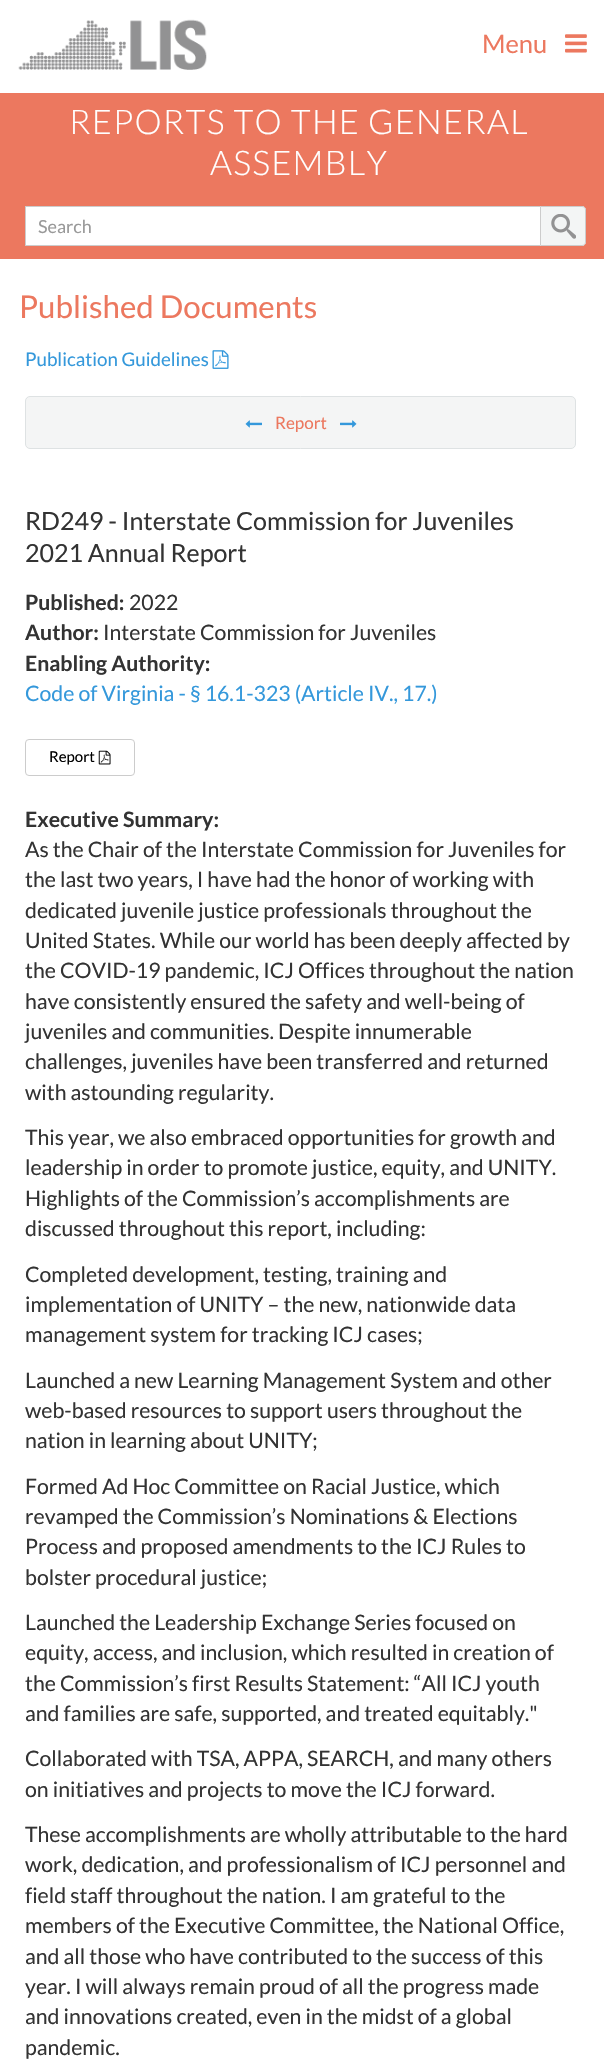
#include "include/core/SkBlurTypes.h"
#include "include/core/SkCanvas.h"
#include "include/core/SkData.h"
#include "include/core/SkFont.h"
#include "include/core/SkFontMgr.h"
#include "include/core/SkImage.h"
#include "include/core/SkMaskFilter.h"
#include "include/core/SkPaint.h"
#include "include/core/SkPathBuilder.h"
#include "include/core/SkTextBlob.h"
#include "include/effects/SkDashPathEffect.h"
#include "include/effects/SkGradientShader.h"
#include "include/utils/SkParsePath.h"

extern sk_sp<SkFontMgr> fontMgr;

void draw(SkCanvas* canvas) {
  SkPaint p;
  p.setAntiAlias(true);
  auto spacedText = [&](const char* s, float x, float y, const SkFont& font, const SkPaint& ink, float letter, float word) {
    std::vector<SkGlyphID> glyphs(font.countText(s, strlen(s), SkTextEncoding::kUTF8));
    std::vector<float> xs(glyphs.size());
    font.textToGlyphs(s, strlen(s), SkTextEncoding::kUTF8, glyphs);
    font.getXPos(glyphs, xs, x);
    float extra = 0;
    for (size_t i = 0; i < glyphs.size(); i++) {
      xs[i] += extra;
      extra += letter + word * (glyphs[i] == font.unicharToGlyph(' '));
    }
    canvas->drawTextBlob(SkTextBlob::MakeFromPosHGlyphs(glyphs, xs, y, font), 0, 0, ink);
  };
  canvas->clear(SK_ColorWHITE);
  canvas->drawImageRect(SkImages::DeferredFromEncodedData(SkData::MakeFromFileName("images/1.png")), SkRect::MakeLTRB(18, 19, 207, 70), SkSamplingOptions());
  canvas->drawImageRect(SkImages::DeferredFromEncodedData(SkData::MakeFromFileName("images/2.png")), SkRect::MakeLTRB(565, 34, 587, 53), SkSamplingOptions());
  p.setColor(SkColorSetRGB(236, 120, 95));
  canvas->drawRect(SkRect::MakeLTRB(0, 93, 604, 259), p);
  p.setColor(SK_ColorWHITE);
  canvas->drawRect(SkRect::MakeLTRB(25.5f, 206.5f, 540.5f, 245.5f), p);
  p.setStyle(SkPaint::kStroke_Style);
  p.setStrokeWidth(1);
  p.setColor(SkColorSetRGB(204, 204, 204));
  canvas->drawRect(SkRect::MakeLTRB(25.5f, 206.5f, 540.5f, 245.5f), p);
  p.setStyle(SkPaint::kFill_Style);
  p.setColor(SkColorSetRGB(243, 245, 245));
  canvas->drawPath(SkPathBuilder().moveTo(540, 206).lineTo(582, 206).cubicTo(584, 206, 586, 208, 586, 210).lineTo(586, 242).cubicTo(586, 244, 584, 246, 582, 246).lineTo(540, 246).close().detach(), p);
  canvas->drawImageRect(SkImages::DeferredFromEncodedData(SkData::MakeFromFileName("images/3.png")), SkRect::MakeLTRB(551, 214, 576, 239), SkSamplingOptions());
  p.setStyle(SkPaint::kStroke_Style);
  p.setColor(SkColorSetRGB(204, 204, 204));
  canvas->drawPath(SkPathBuilder().moveTo(540.5f, 206.5f).lineTo(582, 206.5f).cubicTo(584, 206.5f, 585.5f, 208, 585.5f, 210).lineTo(585.5f, 242).cubicTo(585.5f, 244, 584, 245.5f, 582, 245.5f).lineTo(540.5f, 245.5f).close().detach(), p);
  canvas->drawImageRect(SkImages::DeferredFromEncodedData(SkData::MakeFromFileName("images/4.png")), SkRect::MakeLTRB(212, 350, 229, 369), SkSamplingOptions());
  p.setStyle(SkPaint::kFill_Style);
  p.setColor(SkColorSetRGB(244, 245, 245));
  canvas->drawRoundRect(SkRect::MakeLTRB(25.5f, 396.5f, 575.5f, 448.5f), 4.5f, 4.5f, p);
  p.setStyle(SkPaint::kStroke_Style);
  p.setColor(SkColorSetRGB(222, 226, 227));
  canvas->drawRoundRect(SkRect::MakeLTRB(25.5f, 396.5f, 575.5f, 448.5f), 4.5f, 4.5f, p);
  canvas->drawImageRect(SkImages::DeferredFromEncodedData(SkData::MakeFromFileName("images/5.png")), SkRect::MakeLTRB(245, 420, 262, 428), SkSamplingOptions());
  canvas->drawImageRect(SkImages::DeferredFromEncodedData(SkData::MakeFromFileName("images/6.png")), SkRect::MakeLTRB(340, 420, 357, 428), SkSamplingOptions());
  p.setColor(SkColorSetRGB(204, 204, 204));
  canvas->drawRoundRect(SkRect::MakeLTRB(25.5f, 739.5f, 134.5f, 775.5f), 3.5f, 3.5f, p);
  canvas->drawImageRect(SkImages::DeferredFromEncodedData(SkData::MakeFromFileName("images/7.png")), SkRect::MakeLTRB(98, 750, 111, 765), SkSamplingOptions());
  SkFont font1(fontMgr->matchFamilyStyle("Lato", SkFontStyle::Normal()), 25.5f);
  font1.setSubpixel(true);
  p.setStyle(SkPaint::kFill_Style);
  p.setColor(SkColorSetRGB(236, 120, 95));
  canvas->drawString("Menu", 482, 53, font1, p);
  SkFont font2(fontMgr->matchFamilyStyle("Lato", SkFontStyle(300, SkFontStyle::kNormal_Width, SkFontStyle::kUpright_Slant)), 34);
  font2.setSubpixel(true);
  p.setColor(SK_ColorWHITE);
  spacedText("REPORTS TO THE GENERAL", 69, 134, font2, p, 1.25f, 0);
  spacedText("ASSEMBLY", 210, 175, font2, p, 1.25f, 0);
  SkFont font3(fontMgr->matchFamilyStyle("Lato", SkFontStyle::Normal()), 18);
  font3.setSubpixel(true);
  p.setColor(SkColorSetRGB(153, 153, 153));
  canvas->drawString("Search", 38, 233, font3, p);
  SkFont font4(fontMgr->matchFamilyStyle("Lato", SkFontStyle::Normal()), 31.25f);
  font4.setSubpixel(true);
  p.setColor(SkColorSetRGB(236, 120, 95));
  canvas->drawString("Published Documents", 19, 318, font4, p);
  SkFont font5(fontMgr->matchFamilyStyle("Lato", SkFontStyle::Normal()), 18.75f);
  font5.setSubpixel(true);
  p.setColor(SkColorSetRGB(52, 152, 219));
  canvas->drawString("Publication Guidelines", 25, 366, font5, p);
  SkFont font6(fontMgr->matchFamilyStyle("Lato", SkFontStyle::Normal()), 17);
  font6.setSubpixel(true);
  p.setColor(SkColorSetRGB(236, 120, 95));
  canvas->drawString("Report", 275, 429, font6, p);
  SkFont font7(fontMgr->matchFamilyStyle("Lato", SkFontStyle::Normal()), 25);
  font7.setSubpixel(true);
  p.setColor(SkColorSetRGB(51, 51, 51));
  canvas->drawString("RD249 - Interstate Commission for Juveniles", 25, 530, font7, p);
  canvas->drawString("2021 Annual Report", 25, 562, font7, p);
  SkFont font8(fontMgr->matchFamilyStyle("Lato", SkFontStyle::Bold()), 21.25f);
  font8.setSubpixel(true);
  canvas->drawString("Published:", 25, 610, font8, p);
  SkFont font9(fontMgr->matchFamilyStyle("Lato", SkFontStyle::Normal()), 21.25f);
  font9.setSubpixel(true);
  canvas->drawString("2022", 129, 610, font9, p);
  canvas->drawString("Author:", 25, 640, font8, p);
  canvas->drawString("Interstate Commission for Juveniles", 103, 640, font9, p);
  canvas->drawString("Enabling Authority:", 25, 671, font8, p);
  p.setColor(SkColorSetRGB(52, 152, 219));
  canvas->drawString("Code of Virginia - § 16.1-323 (Article IV., 17.)", 25, 701, font9, p);
  SkFont font10(fontMgr->matchFamilyStyle("Lato", SkFontStyle::Normal()), 15);
  font10.setSubpixel(true);
  p.setColor(SK_ColorBLACK);
  canvas->drawString("Report", 49, 762, font10, p);
  p.setColor(SkColorSetRGB(51, 51, 51));
  canvas->drawString("Executive Summary:", 25, 827, font8, p);
  canvas->drawString("As the Chair of the Interstate Commission for Juveniles for", 25, 857, font9, p);
  canvas->drawString("the last two years, I have had the honor of working with", 25, 887, font9, p);
  canvas->drawString("dedicated juvenile justice professionals throughout the", 25, 918, font9, p);
  canvas->drawString("United States. While our world has been deeply affected by", 25, 948, font9, p);
  canvas->drawString("the COVID-19 pandemic, ICJ Offices throughout the nation", 25, 978, font9, p);
  canvas->drawString("have consistently ensured the safety and well-being of", 25, 1009, font9, p);
  canvas->drawString("juveniles and communities. Despite innumerable", 25, 1039, font9, p);
  canvas->drawString("challenges, juveniles have been transferred and returned", 25, 1069, font9, p);
  canvas->drawString("with astounding regularity.", 25, 1100, font9, p);
  canvas->drawString("This year, we also embraced opportunities for growth and", 25, 1145, font9, p);
  canvas->drawString("leadership in order to promote justice, equity, and UNITY.", 25, 1175, font9, p);
  canvas->drawString("Highlights of the Commission’s accomplishments are", 25, 1206, font9, p);
  canvas->drawString("discussed throughout this report, including:", 25, 1236, font9, p);
  canvas->drawString("Completed development, testing, training and", 25, 1282, font9, p);
  canvas->drawString("implementation of UNITY – the new, nationwide data", 25, 1312, font9, p);
  canvas->drawString("management system for tracking ICJ cases;", 25, 1342, font9, p);
  canvas->drawString("Launched a new Learning Management System and other", 25, 1388, font9, p);
  canvas->drawString("web-based resources to support users throughout the", 25, 1418, font9, p);
  canvas->drawString("nation in learning about UNITY;", 25, 1448, font9, p);
  canvas->drawString("Formed Ad Hoc Committee on Racial Justice, which", 25, 1494, font9, p);
  canvas->drawString("revamped the Commission’s Nominations & Elections", 25, 1524, font9, p);
  canvas->drawString("Process and proposed amendments to the ICJ Rules to", 25, 1554, font9, p);
  canvas->drawString("bolster procedural justice;", 25, 1585, font9, p);
  canvas->drawString("Launched the Leadership Exchange Series focused on", 25, 1630, font9, p);
  canvas->drawString("equity, access, and inclusion, which resulted in creation of", 25, 1660, font9, p);
  canvas->drawString("the Commission’s first Results Statement: “All ICJ youth", 25, 1691, font9, p);
  canvas->drawString("and families are safe, supported, and treated equitably.\"", 25, 1721, font9, p);
  canvas->drawString("Collaborated with TSA, APPA, SEARCH, and many others", 25, 1766, font9, p);
  canvas->drawString("on initiatives and projects to move the ICJ forward.", 25, 1797, font9, p);
  canvas->drawString("These accomplishments are wholly attributable to the hard", 25, 1842, font9, p);
  canvas->drawString("work, dedication, and professionalism of ICJ personnel and", 25, 1872, font9, p);
  canvas->drawString("field staff throughout the nation. I am grateful to the", 25, 1903, font9, p);
  canvas->drawString("members of the Executive Committee, the National Office,", 25, 1933, font9, p);
  canvas->drawString("and all those who have contributed to the success of this", 25, 1964, font9, p);
  canvas->drawString("year. I will always remain proud of all the progress made", 25, 1994, font9, p);
  canvas->drawString("and innovations created, even in the midst of a global", 25, 2024, font9, p);
  canvas->drawString("pandemic.", 25, 2055, font9, p);
}
